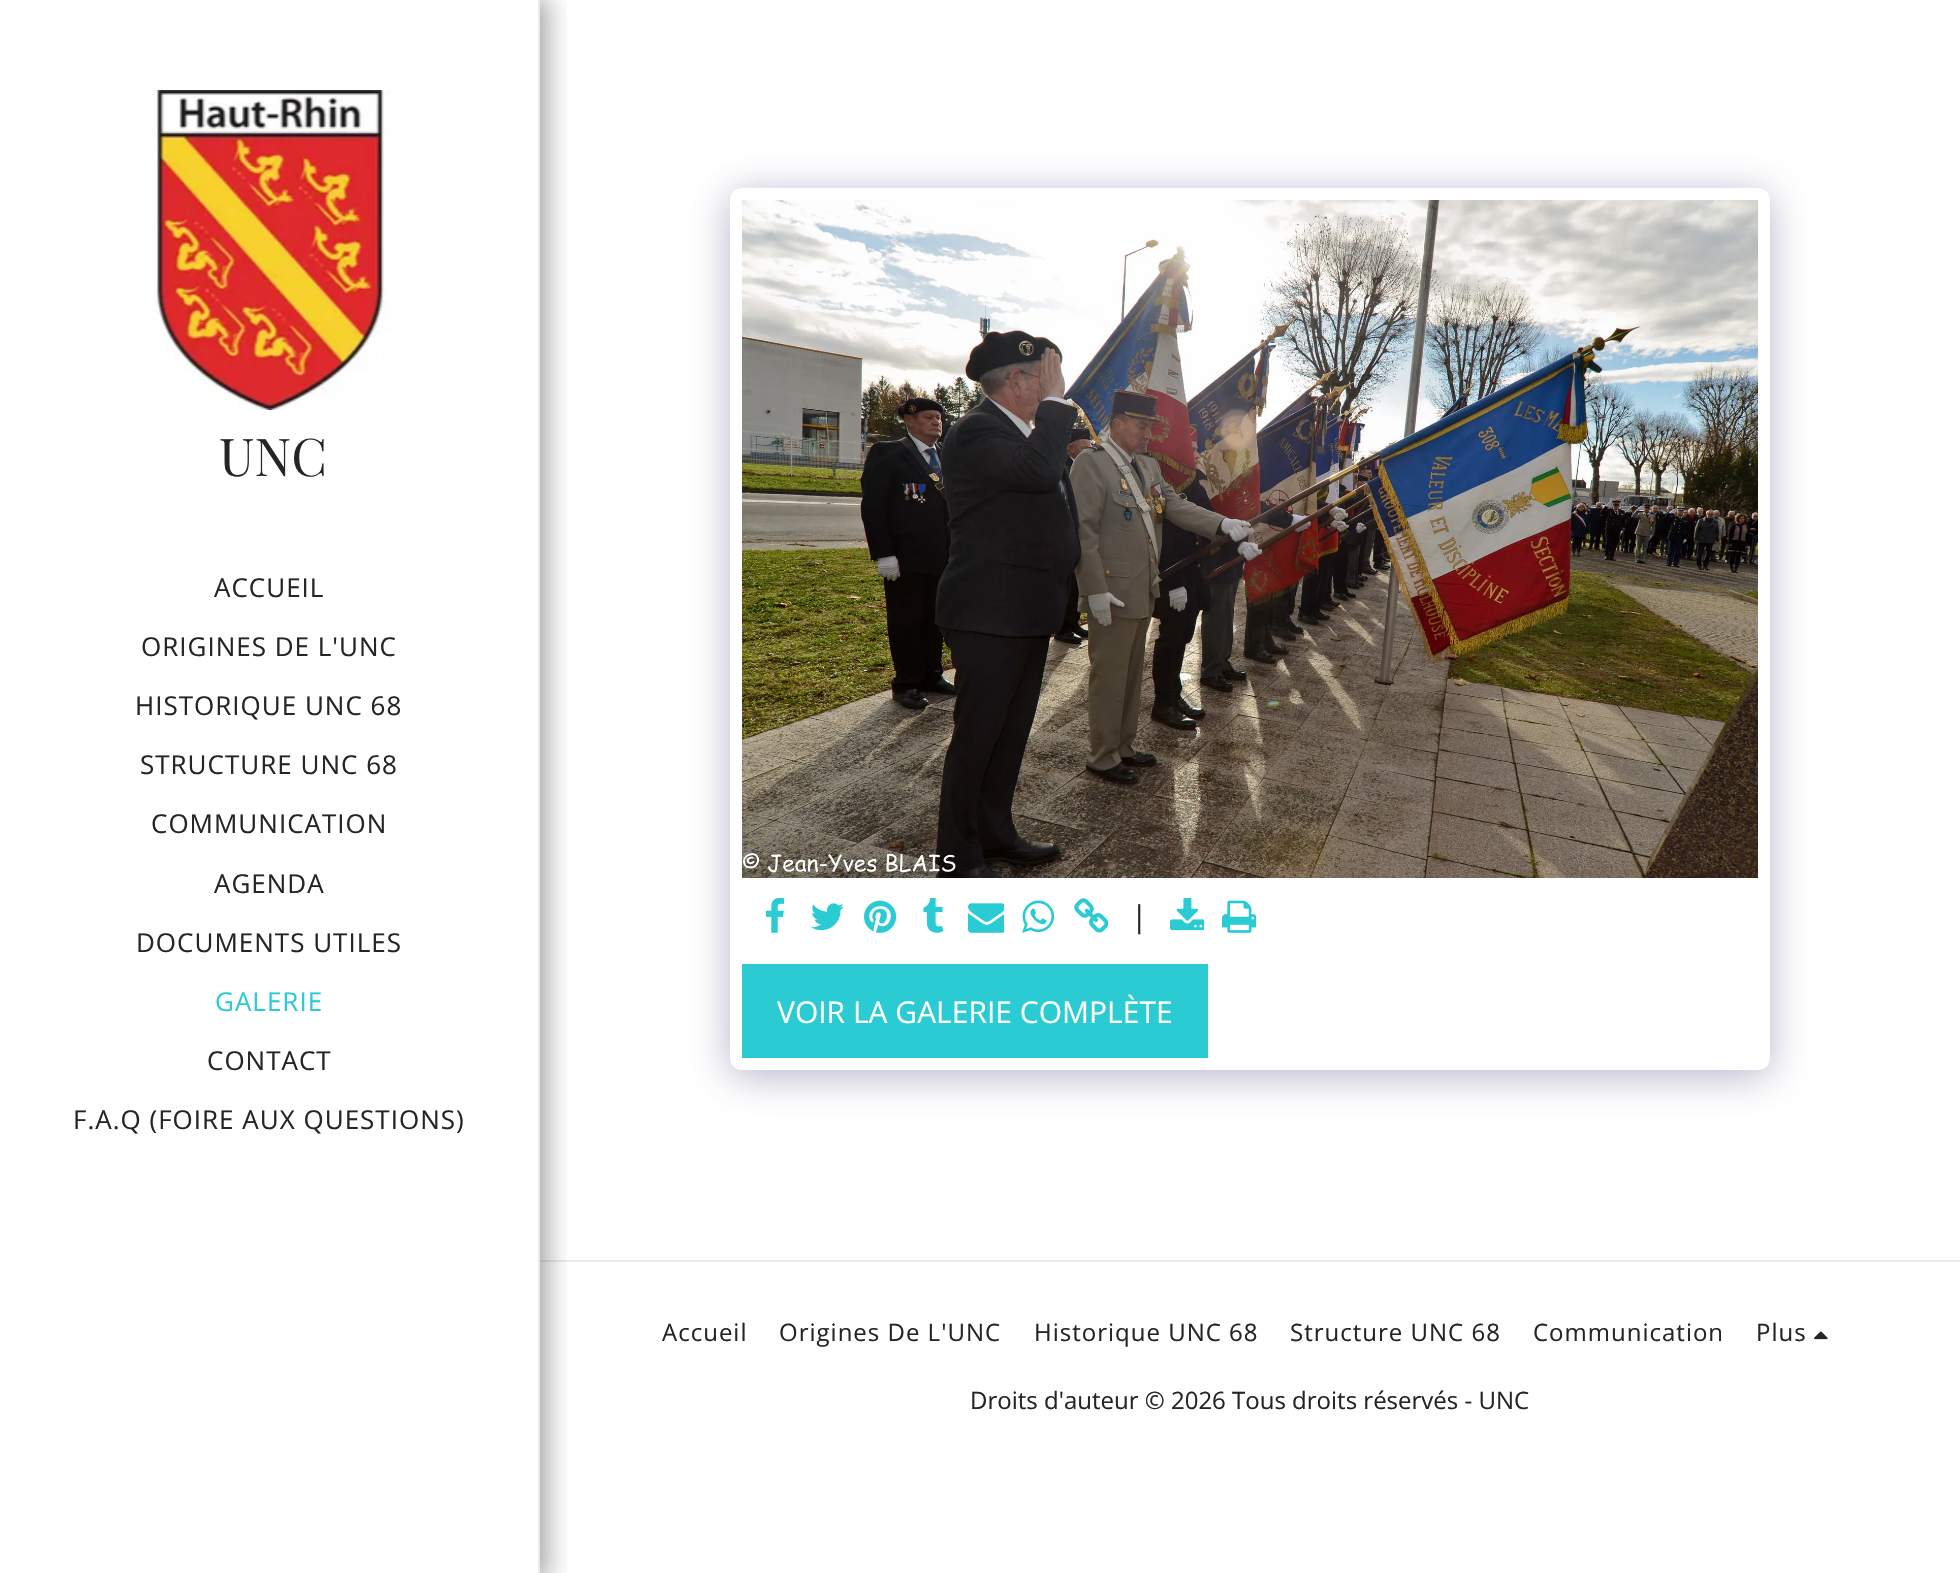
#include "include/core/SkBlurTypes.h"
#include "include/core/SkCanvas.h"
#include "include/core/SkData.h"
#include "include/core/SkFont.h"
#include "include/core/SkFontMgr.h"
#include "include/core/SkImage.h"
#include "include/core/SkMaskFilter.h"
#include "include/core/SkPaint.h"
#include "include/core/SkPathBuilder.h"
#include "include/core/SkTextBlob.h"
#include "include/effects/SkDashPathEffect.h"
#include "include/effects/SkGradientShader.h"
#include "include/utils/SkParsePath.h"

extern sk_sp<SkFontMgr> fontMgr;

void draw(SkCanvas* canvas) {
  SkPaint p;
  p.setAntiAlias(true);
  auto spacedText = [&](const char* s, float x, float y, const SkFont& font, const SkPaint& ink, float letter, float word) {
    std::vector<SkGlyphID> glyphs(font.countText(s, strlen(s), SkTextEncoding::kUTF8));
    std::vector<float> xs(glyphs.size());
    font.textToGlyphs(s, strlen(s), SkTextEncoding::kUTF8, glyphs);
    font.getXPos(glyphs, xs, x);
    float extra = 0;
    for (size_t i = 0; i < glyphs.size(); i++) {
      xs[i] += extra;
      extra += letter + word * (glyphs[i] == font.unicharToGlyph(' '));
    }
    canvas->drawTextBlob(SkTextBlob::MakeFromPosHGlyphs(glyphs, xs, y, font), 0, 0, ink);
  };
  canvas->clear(SK_ColorWHITE);
  p.setColor(SkColorSetRGB(235, 235, 235));
  canvas->drawRect(SkRect::MakeLTRB(540, 1260, 1960, 1262), p);
  canvas->save();
  canvas->clipRect(SkRect::MakeLTRB(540, 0, 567, 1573));
  p.setColor(SkColorSetARGB(89, 0, 0, 0));
  p.setMaskFilter(SkMaskFilter::MakeBlur(kNormal_SkBlurStyle, 12));
  canvas->drawRect(SkRect::MakeLTRB(0, -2, 548, 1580), p);
  p.setMaskFilter(nullptr);
  canvas->restore();
  p.setColor(SkColorSetRGB(235, 235, 235));
  canvas->drawRect(SkRect::MakeLTRB(538, 0, 540, 1573), p);
  canvas->drawImageRect(SkImages::DeferredFromEncodedData(SkData::MakeFromFileName("images/1.png")), SkRect::MakeLTRB(155, 90, 391, 410), SkSamplingOptions());
  p.setColor(SkColorSetARGB(102, 77, 63, 122));
  p.setMaskFilter(SkMaskFilter::MakeBlur(kNormal_SkBlurStyle, 20));
  canvas->drawRoundRect(SkRect::MakeLTRB(730, 194, 1770, 1076), 12, 12, p);
  p.setMaskFilter(nullptr);
  p.setColor(SK_ColorWHITE);
  canvas->drawRoundRect(SkRect::MakeLTRB(730, 188, 1770, 1070), 12, 12, p);
  canvas->drawImageRect(SkImages::DeferredFromEncodedData(SkData::MakeFromFileName("images/2.png")), SkRect::MakeLTRB(742, 200, 1758, 878), SkSamplingOptions());
  canvas->drawImageRect(SkImages::DeferredFromEncodedData(SkData::MakeFromFileName("images/3.png")), SkRect::MakeLTRB(766, 898, 785, 933), SkSamplingOptions());
  canvas->drawImageRect(SkImages::DeferredFromEncodedData(SkData::MakeFromFileName("images/4.png")), SkRect::MakeLTRB(811, 903, 844, 931), SkSamplingOptions());
  canvas->drawImageRect(SkImages::DeferredFromEncodedData(SkData::MakeFromFileName("images/5.png")), SkRect::MakeLTRB(864, 900, 896, 933), SkSamplingOptions());
  canvas->drawImageRect(SkImages::DeferredFromEncodedData(SkData::MakeFromFileName("images/6.png")), SkRect::MakeLTRB(923, 898, 944, 933), SkSamplingOptions());
  canvas->drawImageRect(SkImages::DeferredFromEncodedData(SkData::MakeFromFileName("images/7.png")), SkRect::MakeLTRB(968, 903, 1004, 933), SkSamplingOptions());
  canvas->drawImageRect(SkImages::DeferredFromEncodedData(SkData::MakeFromFileName("images/8.png")), SkRect::MakeLTRB(1022, 900, 1054, 933), SkSamplingOptions());
  canvas->drawImageRect(SkImages::DeferredFromEncodedData(SkData::MakeFromFileName("images/9.png")), SkRect::MakeLTRB(1074, 898, 1108, 933), SkSamplingOptions());
  canvas->drawImageRect(SkImages::DeferredFromEncodedData(SkData::MakeFromFileName("images/10.png")), SkRect::MakeLTRB(1170, 898, 1204, 931), SkSamplingOptions());
  canvas->drawImageRect(SkImages::DeferredFromEncodedData(SkData::MakeFromFileName("images/11.png")), SkRect::MakeLTRB(1222, 900, 1256, 933), SkSamplingOptions());
  p.setColor(SkColorSetRGB(42, 203, 210));
  canvas->drawRect(SkRect::MakeLTRB(742, 964, 1208, 1058), p);
  canvas->drawImageRect(SkImages::DeferredFromEncodedData(SkData::MakeFromFileName("images/12.png")), SkRect::MakeLTRB(1814, 1331, 1828, 1340), SkSamplingOptions());
  SkFont font1(fontMgr->matchFamilyStyle("Playfair Display", SkFontStyle::Normal()), 52);
  font1.setSubpixel(true);
  p.setColor(SkColorSetRGB(37, 37, 37));
  canvas->drawString("UNC", 219, 476, font1, p);
  SkFont font2(fontMgr->matchFamilyStyle("Open Sans", SkFontStyle::Normal()), 26);
  font2.setSubpixel(true);
  spacedText("ACCUEIL", 214, 597, font2, p, 1, 0);
  spacedText("ORIGINES DE L'UNC", 141, 656, font2, p, 1, 0);
  spacedText("HISTORIQUE UNC 68", 135, 715, font2, p, 1, 0);
  spacedText("STRUCTURE UNC 68", 140, 774, font2, p, 1, 0);
  spacedText("COMMUNICATION", 151, 833, font2, p, 1, 0);
  spacedText("AGENDA", 214, 893, font2, p, 1, 0);
  spacedText("DOCUMENTS UTILES", 136, 952, font2, p, 1, 0);
  p.setColor(SkColorSetRGB(42, 203, 210));
  spacedText("GALERIE", 215, 1011, font2, p, 1, 0);
  p.setColor(SkColorSetRGB(37, 37, 37));
  spacedText("CONTACT", 207, 1070, font2, p, 1, 0);
  spacedText("F.A.Q (FOIRE AUX QUESTIONS)", 73, 1129, font2, p, 1, 0);
  SkFont font3(fontMgr->matchFamilyStyle("Open Sans", SkFontStyle::Normal()), 30);
  font3.setSubpixel(true);
  canvas->drawString("|", 1131, 927, font3, p);
  p.setColor(SK_ColorWHITE);
  canvas->drawString("VOIR LA GALERIE COMPLÈTE", 777, 1023, font3, p);
  SkFont font4(fontMgr->matchFamilyStyle("Open Sans", SkFontStyle::Normal()), 24);
  font4.setSubpixel(true);
  p.setColor(SkColorSetRGB(37, 37, 37));
  spacedText("Accueil", 662, 1341, font4, p, 1, 0);
  spacedText("Origines De L'UNC", 779, 1341, font4, p, 1, 0);
  spacedText("Historique UNC 68", 1034, 1341, font4, p, 1, 0);
  spacedText("Structure UNC 68", 1290, 1341, font4, p, 1, 0);
  spacedText("Communication", 1533, 1341, font4, p, 1, 0);
  spacedText("Plus", 1756, 1341, font4, p, 1, 0);
  canvas->drawString("Droits d'auteur © 2026 Tous droits réservés - UNC", 970, 1409, font4, p);
}
